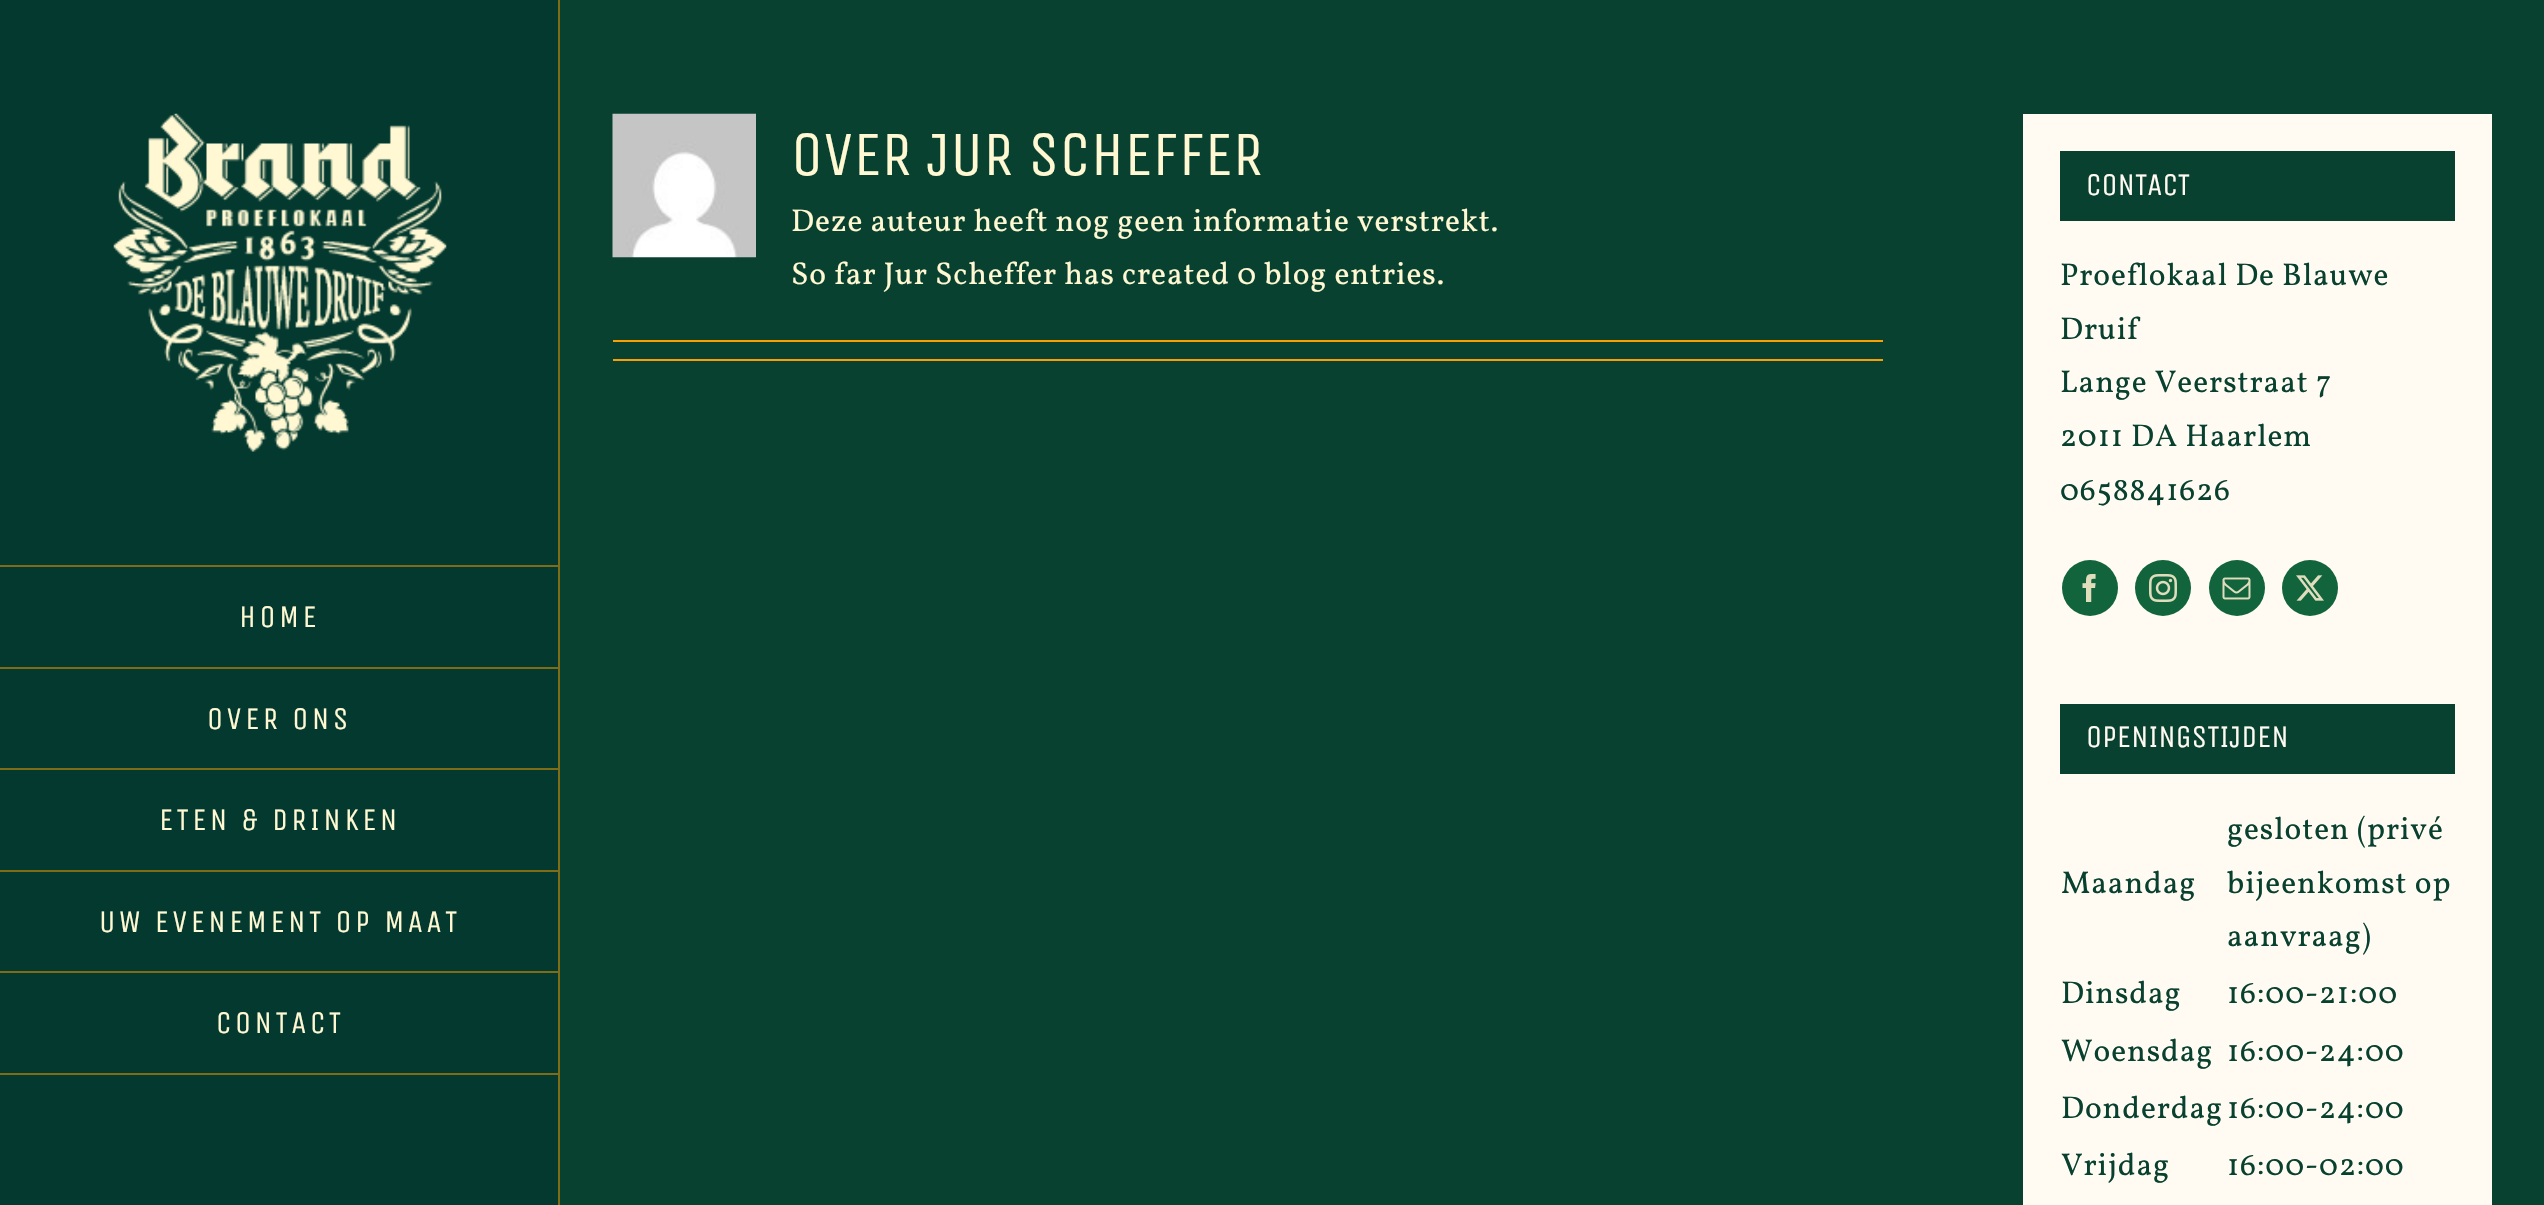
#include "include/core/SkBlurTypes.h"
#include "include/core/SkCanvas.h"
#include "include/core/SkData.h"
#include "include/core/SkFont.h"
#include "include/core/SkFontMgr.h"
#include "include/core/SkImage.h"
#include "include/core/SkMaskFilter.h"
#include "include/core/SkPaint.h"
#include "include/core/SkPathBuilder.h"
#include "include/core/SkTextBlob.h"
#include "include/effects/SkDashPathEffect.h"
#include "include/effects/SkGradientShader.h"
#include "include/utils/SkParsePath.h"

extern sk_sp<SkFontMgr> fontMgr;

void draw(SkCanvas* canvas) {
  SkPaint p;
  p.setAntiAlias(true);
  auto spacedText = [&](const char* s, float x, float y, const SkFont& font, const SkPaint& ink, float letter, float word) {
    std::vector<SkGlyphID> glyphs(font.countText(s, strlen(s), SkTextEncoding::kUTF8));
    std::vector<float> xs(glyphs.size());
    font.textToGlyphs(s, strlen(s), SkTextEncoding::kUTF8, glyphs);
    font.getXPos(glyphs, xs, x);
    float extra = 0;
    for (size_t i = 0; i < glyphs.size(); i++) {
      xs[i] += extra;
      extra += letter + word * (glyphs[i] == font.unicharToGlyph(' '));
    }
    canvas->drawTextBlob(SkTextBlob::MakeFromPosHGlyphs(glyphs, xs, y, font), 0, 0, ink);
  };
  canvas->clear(SkColorSetRGB(8, 65, 47));
  p.setColor(SkColorSetRGB(3, 57, 46));
  canvas->drawRect(SkRect::MakeLTRB(0, 0, 558, 1205), p);
  p.setColor(SkColorSetRGB(126, 108, 23));
  canvas->drawRect(SkRect::MakeLTRB(558, 0, 560, 1205), p);
  canvas->drawImageRect(SkImages::DeferredFromEncodedData(SkData::MakeFromFileName("images/1.png")), SkRect::MakeLTRB(113, 113, 447, 452), SkSamplingOptions());
  canvas->drawRect(SkRect::MakeLTRB(0, 565, 560, 567), p);
  canvas->drawRect(SkRect::MakeLTRB(0, 667, 560, 669), p);
  canvas->drawRect(SkRect::MakeLTRB(0, 768, 560, 770), p);
  canvas->drawRect(SkRect::MakeLTRB(0, 870, 560, 872), p);
  canvas->drawRect(SkRect::MakeLTRB(0, 971, 560, 973), p);
  canvas->drawRect(SkRect::MakeLTRB(0, 1073, 560, 1075), p);
  canvas->drawImageRect(SkImages::DeferredFromEncodedData(SkData::MakeFromFileName("images/2.png")), SkRect::MakeLTRB(612, 113, 756, 258), SkSamplingOptions());
  p.setColor(SkColorSetRGB(249, 159, 1));
  canvas->drawRect(SkRect::MakeLTRB(613, 340, 1883, 342), p);
  canvas->drawRect(SkRect::MakeLTRB(613, 359, 1883, 361), p);
  p.setColor(SkColorSetRGB(255, 250, 242));
  canvas->drawRect(SkRect::MakeLTRB(2023, 114, 2492, 1205), p);
  p.setColor(SkColorSetRGB(8, 65, 47));
  canvas->drawRect(SkRect::MakeLTRB(2060, 151, 2455, 221), p);
  p.setColor(SkColorSetRGB(17, 100, 60));
  canvas->drawCircle(2090, 588, 28, p);
  canvas->drawImageRect(SkImages::DeferredFromEncodedData(SkData::MakeFromFileName("images/3.png")), SkRect::MakeLTRB(2082, 574, 2096, 602), SkSamplingOptions());
  canvas->drawCircle(2163, 588, 28, p);
  canvas->drawImageRect(SkImages::DeferredFromEncodedData(SkData::MakeFromFileName("images/4.png")), SkRect::MakeLTRB(2149, 574, 2177, 602), SkSamplingOptions());
  canvas->drawCircle(2237, 588, 28, p);
  canvas->drawImageRect(SkImages::DeferredFromEncodedData(SkData::MakeFromFileName("images/5.png")), SkRect::MakeLTRB(2222, 577, 2251, 600), SkSamplingOptions());
  canvas->drawCircle(2310, 588, 28, p);
  canvas->drawImageRect(SkImages::DeferredFromEncodedData(SkData::MakeFromFileName("images/6.png")), SkRect::MakeLTRB(2296, 575, 2324, 601), SkSamplingOptions());
  p.setColor(SkColorSetRGB(8, 65, 47));
  canvas->drawRect(SkRect::MakeLTRB(2060, 704, 2455, 774), p);
  SkFont font1(fontMgr->matchFamilyStyle("Unica One", SkFontStyle::Normal()), 31.5f);
  font1.setSubpixel(true);
  p.setColor(SkColorSetRGB(255, 248, 211));
  spacedText("HOME", 239, 627, font1, p, 3.5f, 0);
  spacedText("OVER ONS", 207, 729, font1, p, 3.5f, 0);
  spacedText("ETEN & DRINKEN", 159, 830, font1, p, 3.5f, 0);
  spacedText("UW EVENEMENT OP MAAT", 99, 932, font1, p, 3.5f, 0);
  spacedText("CONTACT", 216, 1033, font1, p, 3.5f, 0);
  SkFont font2(fontMgr->matchFamilyStyle("Unica One", SkFontStyle::Normal()), 63);
  font2.setSubpixel(true);
  canvas->drawString("OVER JUR SCHEFFER", 791, 175, font2, p);
  SkFont font3(fontMgr->matchFamilyStyle("Vollkorn", SkFontStyle::Normal()), 31.5f);
  font3.setSubpixel(true);
  spacedText("Deze auteur heeft nog geen informatie verstrekt.", 791, 231, font3, p, 0.9f, 0);
  spacedText("So far Jur Scheffer has created 0 blog entries.", 791, 284, font3, p, 0.9f, 0);
  p.setColor(SkColorSetRGB(255, 250, 242));
  canvas->drawString("CONTACT", 2086, 195, font1, p);
  p.setColor(SkColorSetRGB(8, 65, 47));
  spacedText("Proeflokaal De Blauwe", 2060, 285, font3, p, 0.9f, 0);
  spacedText("Druif", 2060, 339, font3, p, 0.9f, 0);
  spacedText("Lange Veerstraat 7", 2060, 392, font3, p, 0.9f, 0);
  spacedText("2011 DA Haarlem", 2060, 446, font3, p, 0.9f, 0);
  spacedText("0658841626", 2060, 500, font3, p, 0.9f, 0);
  p.setColor(SkColorSetRGB(255, 250, 242));
  canvas->drawString("OPENINGSTIJDEN", 2086, 747, font1, p);
  p.setColor(SkColorSetRGB(8, 65, 47));
  spacedText("Maandag", 2061, 893, font3, p, 0.9f, 0);
  spacedText("gesloten (privé", 2227, 839, font3, p, 0.9f, 0);
  spacedText("bijeenkomst op", 2227, 893, font3, p, 0.9f, 0);
  spacedText("aanvraag)", 2227, 946, font3, p, 0.9f, 0);
  spacedText("Dinsdag", 2061, 1003, font3, p, 0.9f, 0);
  spacedText("16:00-21:00", 2227, 1003, font3, p, 0.9f, 0);
  spacedText("Woensdag", 2061, 1061, font3, p, 0.9f, 0);
  spacedText("16:00-24:00", 2227, 1061, font3, p, 0.9f, 0);
  spacedText("Donderdag", 2061, 1118, font3, p, 0.9f, 0);
  spacedText("16:00-24:00", 2227, 1118, font3, p, 0.9f, 0);
  spacedText("Vrijdag", 2061, 1175, font3, p, 0.9f, 0);
  spacedText("16:00-02:00", 2227, 1175, font3, p, 0.9f, 0);
}
